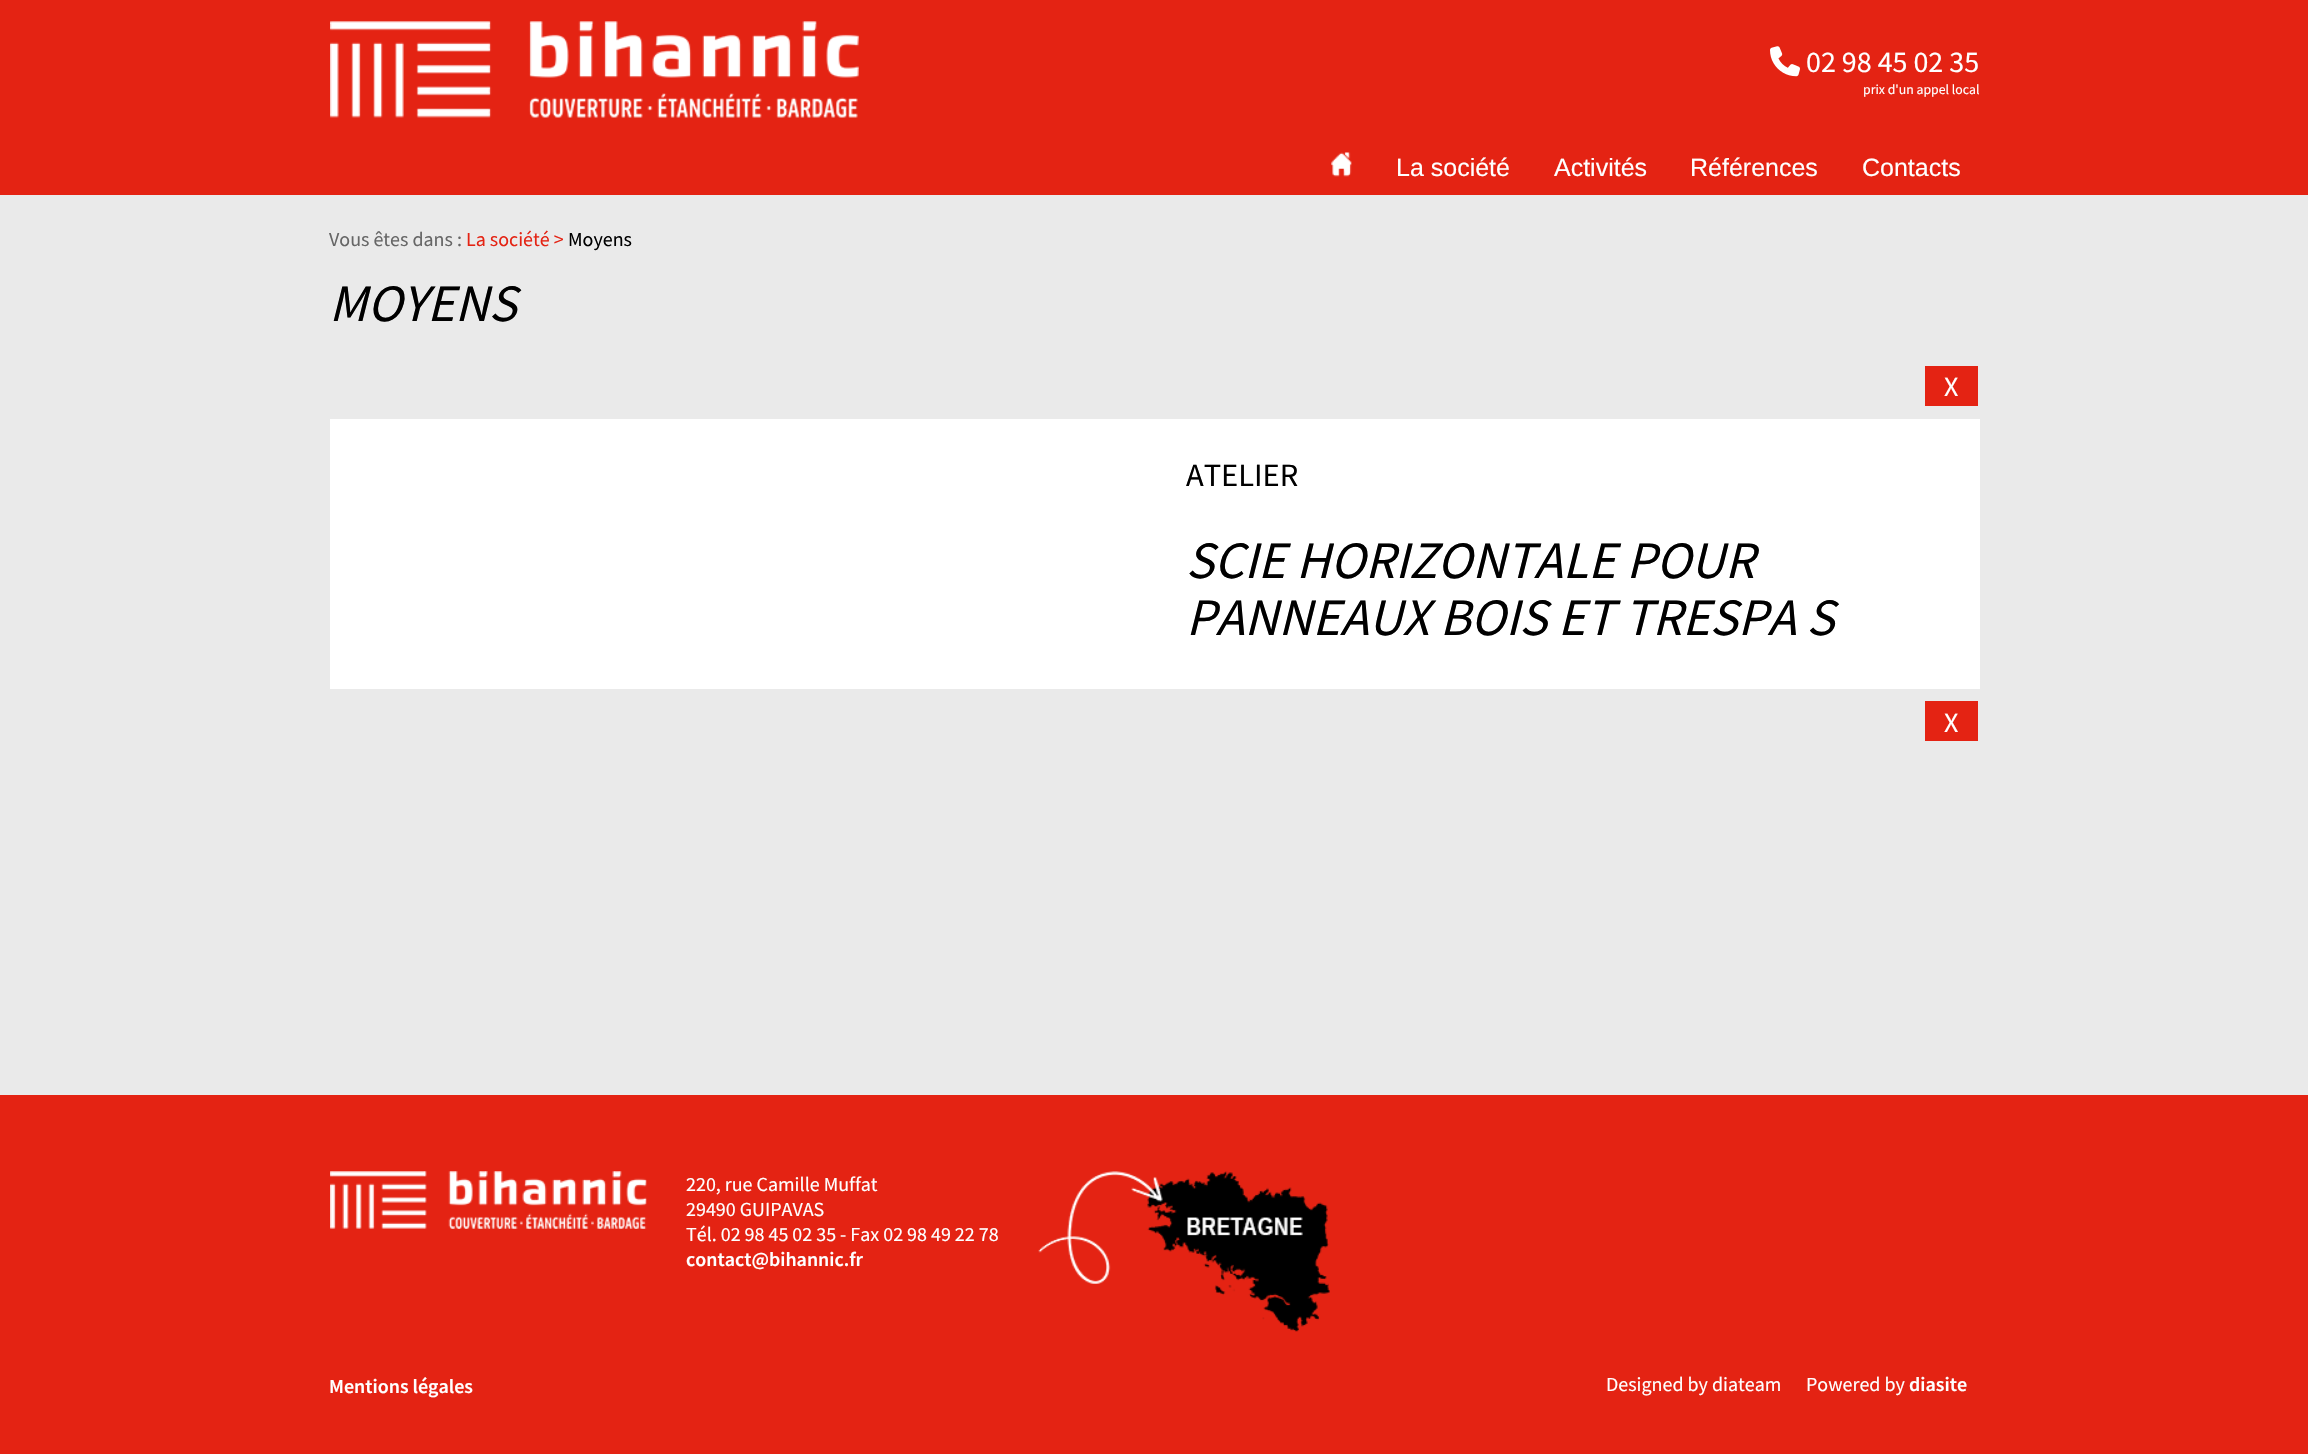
#include "include/core/SkBlurTypes.h"
#include "include/core/SkCanvas.h"
#include "include/core/SkData.h"
#include "include/core/SkFont.h"
#include "include/core/SkFontMgr.h"
#include "include/core/SkImage.h"
#include "include/core/SkMaskFilter.h"
#include "include/core/SkPaint.h"
#include "include/core/SkPathBuilder.h"
#include "include/core/SkTextBlob.h"
#include "include/effects/SkDashPathEffect.h"
#include "include/effects/SkGradientShader.h"
#include "include/utils/SkParsePath.h"

extern sk_sp<SkFontMgr> fontMgr;

void draw(SkCanvas* canvas) {
  SkPaint p;
  p.setAntiAlias(true);
  canvas->clear(SkColorSetRGB(234, 234, 234));
  p.setColor(SkColorSetRGB(228, 35, 19));
  canvas->drawRect(SkRect::MakeLTRB(0, 0, 2308, 195), p);
  canvas->drawImageRect(SkImages::DeferredFromEncodedData(SkData::MakeFromFileName("images/1.png")), SkRect::MakeLTRB(330, 21, 859, 118), SkSamplingOptions());
  canvas->drawImageRect(SkImages::DeferredFromEncodedData(SkData::MakeFromFileName("images/2.png")), SkRect::MakeLTRB(1770, 46, 1800, 77), SkSamplingOptions());
  canvas->drawImageRect(SkImages::DeferredFromEncodedData(SkData::MakeFromFileName("images/3.png")), SkRect::MakeLTRB(1331, 152, 1352, 177), SkSamplingOptions());
  canvas->drawRect(SkRect::MakeLTRB(1925, 366, 1978, 406), p);
  p.setColor(SK_ColorWHITE);
  canvas->drawRect(SkRect::MakeLTRB(330, 419, 1980, 689), p);
  p.setColor(SkColorSetRGB(228, 35, 19));
  canvas->drawRect(SkRect::MakeLTRB(1925, 701, 1978, 741), p);
  canvas->drawRect(SkRect::MakeLTRB(0, 1095, 2308, 1454), p);
  canvas->drawImageRect(SkImages::DeferredFromEncodedData(SkData::MakeFromFileName("images/4.png")), SkRect::MakeLTRB(330, 1171, 647, 1229), SkSamplingOptions());
  canvas->drawImageRect(SkImages::DeferredFromEncodedData(SkData::MakeFromFileName("images/5.png")), SkRect::MakeLTRB(1038, 1171, 1330, 1332), SkSamplingOptions());
  SkFont font1(fontMgr->matchFamilyStyle("Source Sans Pro", SkFontStyle::Normal()), 30);
  font1.setSubpixel(true);
  p.setColor(SK_ColorWHITE);
  canvas->drawString("02 98 45 02 35", 1806, 72, font1, p);
  SkFont font2(fontMgr->matchFamilyStyle("Source Sans Pro", SkFontStyle::Normal()), 13.75f);
  font2.setSubpixel(true);
  canvas->drawString("prix d'un appel local", 1863, 94, font2, p);
  SkFont font3(fontMgr->matchFamilyStyle("Liberation Sans", SkFontStyle::Normal()), 25);
  font3.setSubpixel(true);
  canvas->drawString("La société", 1396, 176, font3, p);
  canvas->drawString("Activités", 1554, 176, font3, p);
  canvas->drawString("Références", 1690, 176, font3, p);
  canvas->drawString("Contacts", 1862, 176, font3, p);
  SkFont font4(fontMgr->matchFamilyStyle("Source Sans Pro", SkFontStyle::Normal()), 20);
  font4.setSubpixel(true);
  p.setColor(SkColorSetRGB(102, 102, 102));
  canvas->drawString("Vous êtes dans :", 329, 246, font4, p);
  p.setColor(SkColorSetRGB(228, 35, 19));
  canvas->drawString("La société >", 466, 246, font4, p);
  p.setColor(SK_ColorBLACK);
  canvas->drawString("Moyens", 568, 246, font4, p);
  SkFont font5(fontMgr->matchFamilyStyle("Source Sans Pro", SkFontStyle::Italic()), 52.5f);
  font5.setSubpixel(true);
  canvas->drawString("MOYENS", 329, 321, font5, p);
  SkFont font6(fontMgr->matchFamilyStyle("Source Sans Pro", SkFontStyle::Normal()), 28);
  font6.setSubpixel(true);
  p.setColor(SK_ColorWHITE);
  canvas->drawString("X", 1944, 396, font6, p);
  SkFont font7(fontMgr->matchFamilyStyle("Source Sans Pro", SkFontStyle::Normal()), 32.5f);
  font7.setSubpixel(true);
  p.setColor(SK_ColorBLACK);
  canvas->drawString("ATELIER", 1186, 486, font7, p);
  canvas->drawString("SCIE HORIZONTALE POUR", 1186, 578, font5, p);
  canvas->drawString("PANNEAUX BOIS ET TRESPA S", 1186, 635, font5, p);
  p.setColor(SK_ColorWHITE);
  canvas->drawString("X", 1944, 732, font6, p);
  canvas->drawString("220, rue Camille Muffat", 686, 1191, font4, p);
  canvas->drawString("29490 GUIPAVAS", 686, 1216, font4, p);
  canvas->drawString("Tél. 02 98 45 02 35 - Fax 02 98 49 22 78", 686, 1241, font4, p);
  SkFont font8(fontMgr->matchFamilyStyle("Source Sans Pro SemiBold", SkFontStyle(600, SkFontStyle::kNormal_Width, SkFontStyle::kUpright_Slant)), 20);
  font8.setSubpixel(true);
  canvas->drawString("contact@bihannic.fr", 686, 1266, font8, p);
  canvas->drawString("Mentions légales", 329, 1393, font8, p);
  canvas->drawString("Designed by diateam", 1606, 1391, font4, p);
  canvas->drawString("Powered by", 1806, 1391, font4, p);
  canvas->drawString("diasite", 1909, 1391, font8, p);
}
